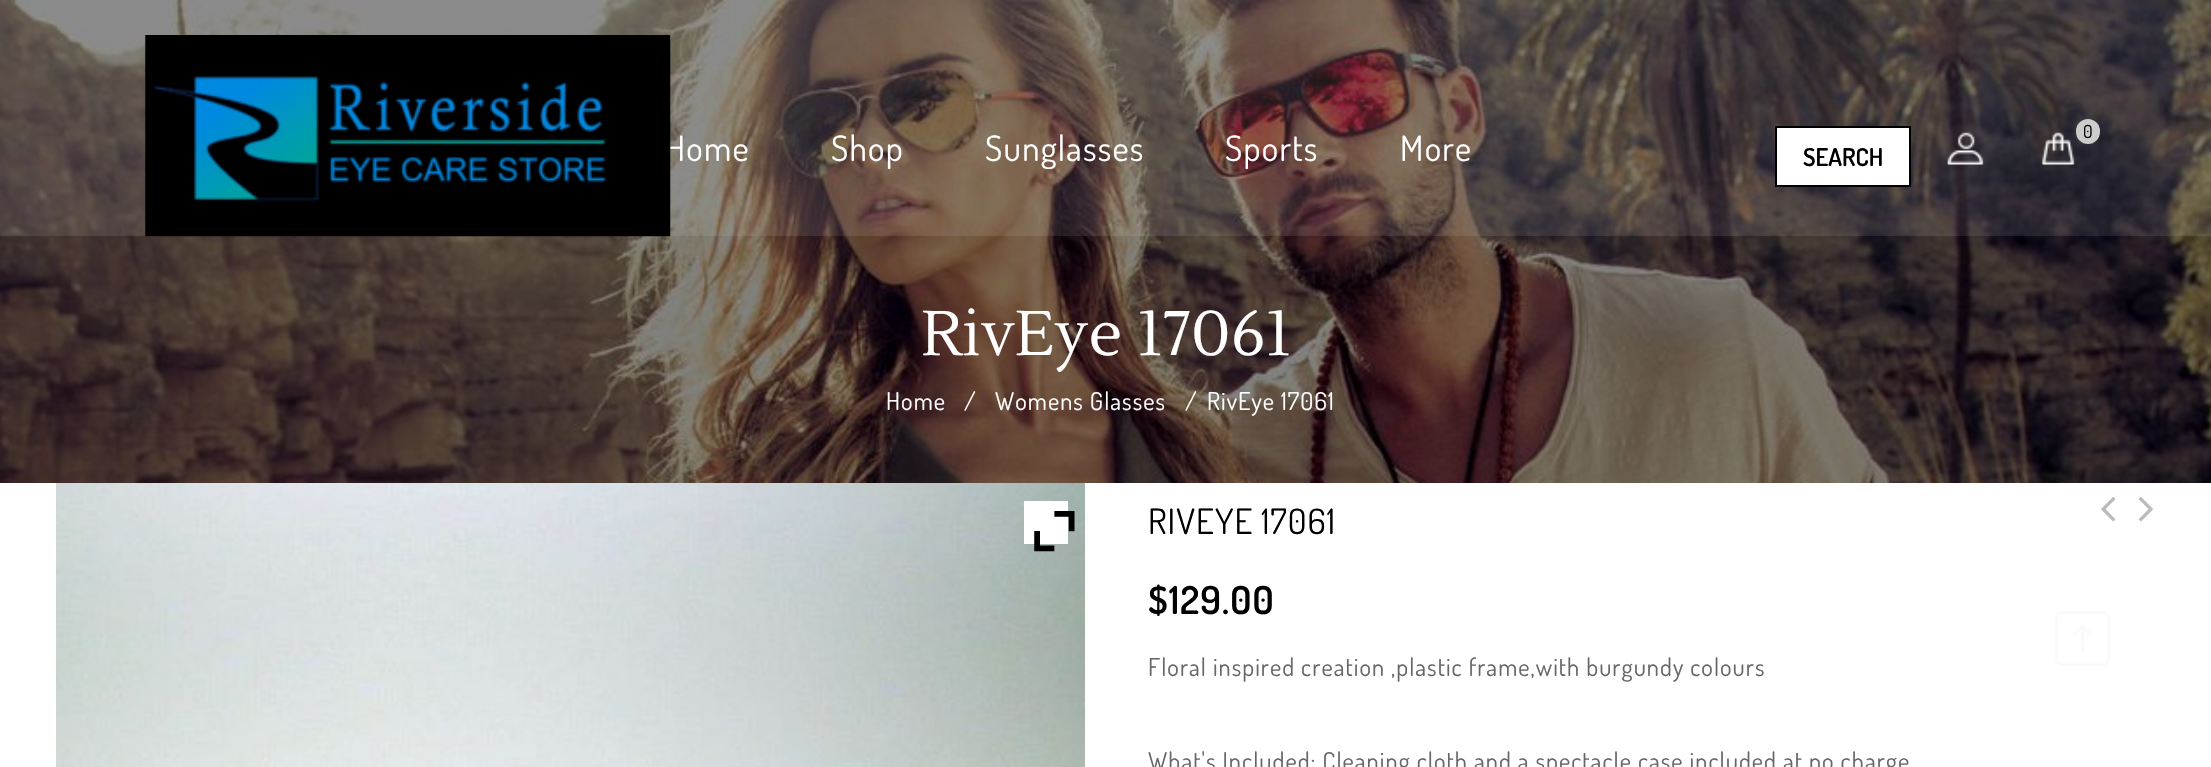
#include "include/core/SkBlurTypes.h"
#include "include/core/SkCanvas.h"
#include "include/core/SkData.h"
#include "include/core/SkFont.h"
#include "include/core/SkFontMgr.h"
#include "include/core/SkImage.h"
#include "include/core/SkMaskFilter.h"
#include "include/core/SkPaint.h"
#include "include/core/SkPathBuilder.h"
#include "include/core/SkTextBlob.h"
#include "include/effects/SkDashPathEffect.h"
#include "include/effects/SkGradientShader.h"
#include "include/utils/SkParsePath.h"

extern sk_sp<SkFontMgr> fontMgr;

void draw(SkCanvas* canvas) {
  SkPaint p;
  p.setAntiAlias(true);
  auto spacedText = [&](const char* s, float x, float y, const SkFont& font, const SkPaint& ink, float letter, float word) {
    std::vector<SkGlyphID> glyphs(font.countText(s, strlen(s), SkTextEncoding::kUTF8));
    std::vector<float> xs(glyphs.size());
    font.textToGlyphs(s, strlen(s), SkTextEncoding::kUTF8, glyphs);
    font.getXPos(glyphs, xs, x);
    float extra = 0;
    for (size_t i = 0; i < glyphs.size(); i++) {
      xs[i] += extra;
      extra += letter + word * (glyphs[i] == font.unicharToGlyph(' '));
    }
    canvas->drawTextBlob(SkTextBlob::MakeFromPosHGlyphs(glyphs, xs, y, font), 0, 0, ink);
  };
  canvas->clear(SK_ColorWHITE);
  canvas->drawImageRect(SkImages::DeferredFromEncodedData(SkData::MakeFromFileName("images/4.png")), SkRect::MakeLTRB(0, 0, 2211, 483), SkSamplingOptions());
  p.setColor(SkColorSetARGB(26, 232, 232, 232));
  canvas->drawRect(SkRect::MakeLTRB(0, 0, 2211, 236), p);
  p.setColor(SK_ColorWHITE);
  canvas->drawRect(SkRect::MakeLTRB(1776, 127, 1910, 186), p);
  p.setStyle(SkPaint::kStroke_Style);
  p.setStrokeWidth(2);
  p.setColor(SK_ColorBLACK);
  canvas->drawRect(SkRect::MakeLTRB(1776, 127, 1910, 186), p);
  canvas->drawImageRect(SkImages::DeferredFromEncodedData(SkData::MakeFromFileName("images/2.png")), SkRect::MakeLTRB(1947, 132, 1984, 165), SkSamplingOptions());
  canvas->drawImageRect(SkImages::DeferredFromEncodedData(SkData::MakeFromFileName("images/3.png")), SkRect::MakeLTRB(2041, 132, 2075, 165), SkSamplingOptions());
  p.setStyle(SkPaint::kFill_Style);
  p.setColor(SkColorSetRGB(204, 204, 204));
  canvas->drawRoundRect(SkRect::MakeLTRB(2076, 119, 2100, 144), 12, 12, p);
  canvas->drawImageRect(SkImages::DeferredFromEncodedData(SkData::MakeFromFileName("images/5.png")), SkRect::MakeLTRB(56, 483, 1085, 767), SkSamplingOptions());
  p.setColor(SK_ColorWHITE);
  canvas->drawRect(SkRect::MakeLTRB(1024, 501, 1068, 544), p);
  canvas->drawImageRect(SkImages::DeferredFromEncodedData(SkData::MakeFromFileName("images/6.png")), SkRect::MakeLTRB(1034, 511, 1075, 552), SkSamplingOptions());
  canvas->drawImageRect(SkImages::DeferredFromEncodedData(SkData::MakeFromFileName("images/7.png")), SkRect::MakeLTRB(2101, 497, 2116, 522), SkSamplingOptions());
  canvas->drawImageRect(SkImages::DeferredFromEncodedData(SkData::MakeFromFileName("images/8.png")), SkRect::MakeLTRB(2138, 497, 2153, 522), SkSamplingOptions());
  canvas->drawImageRect(SkImages::DeferredFromEncodedData(SkData::MakeFromFileName("images/9.png")), SkRect::MakeLTRB(2055, 611, 2110, 666), SkSamplingOptions());
  SkFont font1(fontMgr->matchFamilyStyle("Dosis", SkFontStyle::Normal()), 35);
  font1.setSubpixel(true);
  spacedText("Home", 665, 161, font1, p, 1.25f, 0);
  canvas->drawImageRect(SkImages::DeferredFromEncodedData(SkData::MakeFromFileName("images/1.png")), SkRect::MakeLTRB(145, 35, 671, 237), SkSamplingOptions());
  spacedText("Shop", 831, 161, font1, p, 1.25f, 0);
  spacedText("Sunglasses", 985, 161, font1, p, 1.25f, 0);
  spacedText("Sports", 1225, 161, font1, p, 1.25f, 0);
  spacedText("More", 1400, 161, font1, p, 1.25f, 0);
  SkFont font2(fontMgr->matchFamilyStyle("Dosis", SkFontStyle(600, SkFontStyle::kNormal_Width, SkFontStyle::kUpright_Slant)), 24.5f);
  font2.setSubpixel(true);
  p.setColor(SK_ColorBLACK);
  canvas->drawString("SEARCH", 1803, 166, font2, p);
  SkFont font3(fontMgr->matchFamilyStyle("Dosis", SkFontStyle::Normal()), 18);
  font3.setSubpixel(true);
  spacedText("0", 2083, 138, font3, p, 1.05f, 0);
  SkFont font4(fontMgr->matchFamilyStyle("Lustria", SkFontStyle::Normal()), 63);
  font4.setSubpixel(true);
  p.setColor(SK_ColorWHITE);
  canvas->drawString("RivEye 17061", 921, 355, font4, p);
  SkFont font5(fontMgr->matchFamilyStyle("Dosis", SkFontStyle::Normal()), 24.5f);
  font5.setSubpixel(true);
  spacedText("Home", 886, 410, font5, p, 1.05f, 0);
  spacedText("/", 964, 410, font5, p, 1.05f, 0);
  spacedText("Womens Glasses", 995, 410, font5, p, 1.05f, 0);
  spacedText("/", 1185, 410, font5, p, 1.05f, 0);
  spacedText("RivEye 17061", 1207, 410, font5, p, 1.05f, 0);
  p.setColor(SK_ColorBLACK);
  spacedText("RIVEYE 17061", 1148, 534, font1, p, 1.05f, 0);
  SkFont font6(fontMgr->matchFamilyStyle("Dosis", SkFontStyle(600, SkFontStyle::kNormal_Width, SkFontStyle::kUpright_Slant)), 38.5f);
  font6.setSubpixel(true);
  spacedText("$129.00", 1148, 614, font6, p, 1.05f, 0);
  p.setColor(SkColorSetRGB(102, 102, 102));
  spacedText("Floral inspired creation ,plastic frame,with burgundy colours", 1148, 676, font5, p, 1.05f, 0);
  spacedText("What's Included: Cleaning cloth and a spectacle case included at no charge", 1148, 770, font5, p, 1.05f, 0);
}
